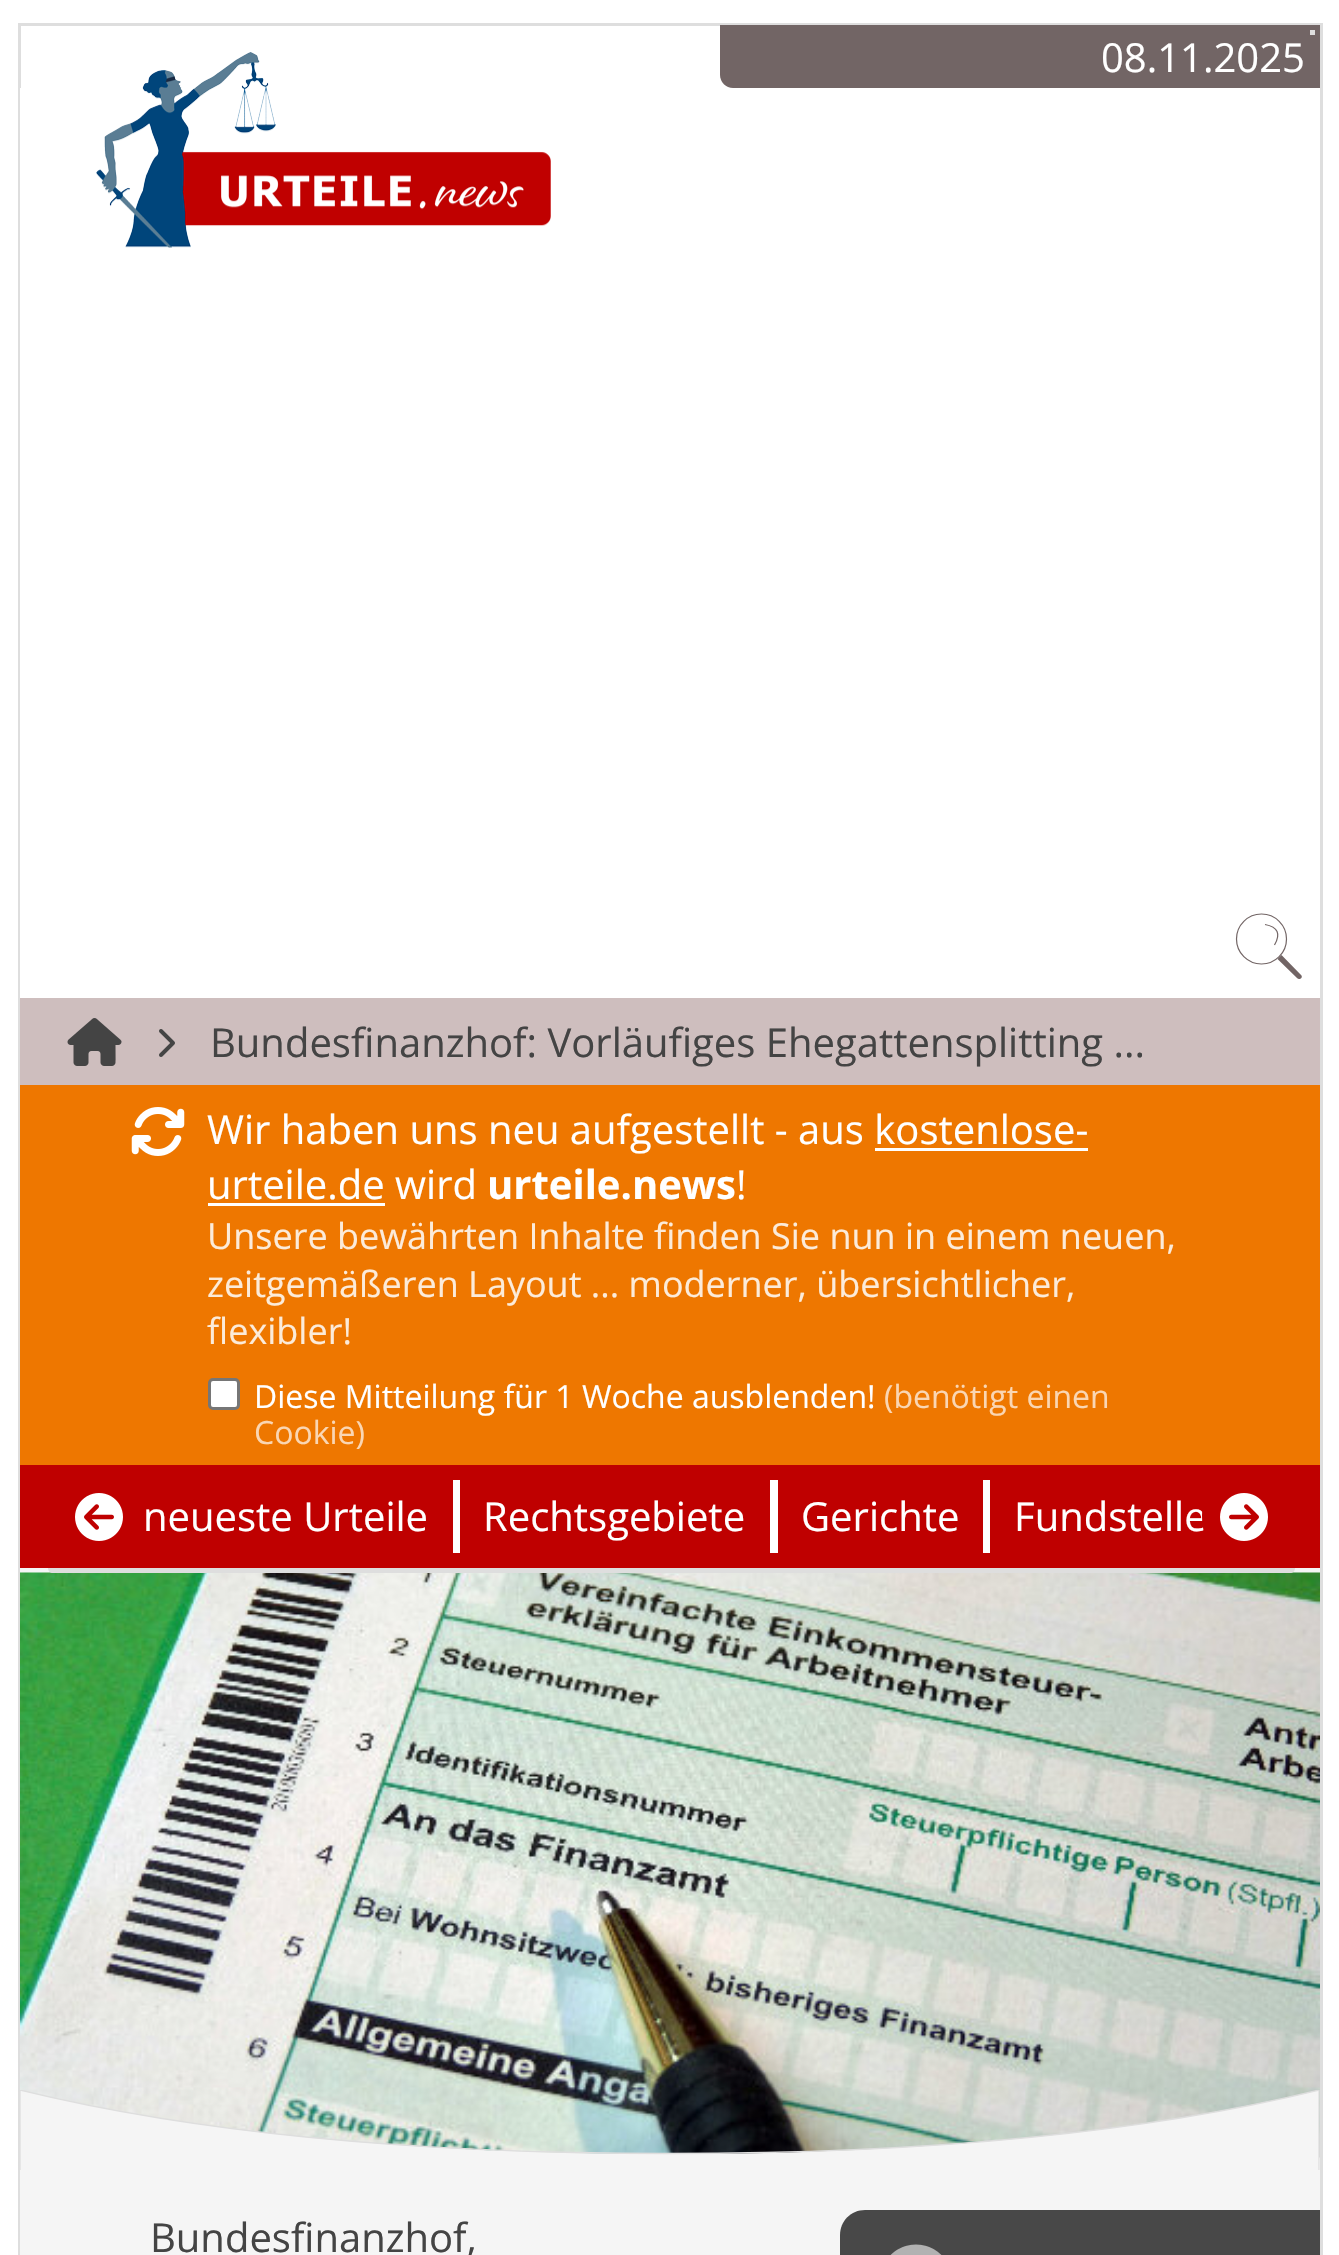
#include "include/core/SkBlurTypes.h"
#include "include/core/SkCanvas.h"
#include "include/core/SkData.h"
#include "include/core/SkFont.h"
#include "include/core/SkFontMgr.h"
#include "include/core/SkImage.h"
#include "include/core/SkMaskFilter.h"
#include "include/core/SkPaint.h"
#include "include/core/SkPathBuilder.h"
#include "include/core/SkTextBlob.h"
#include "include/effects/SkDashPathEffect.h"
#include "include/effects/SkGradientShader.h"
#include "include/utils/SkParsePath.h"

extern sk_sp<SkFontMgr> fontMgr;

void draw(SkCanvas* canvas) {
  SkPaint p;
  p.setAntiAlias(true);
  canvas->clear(SK_ColorWHITE);
  p.setStyle(SkPaint::kStroke_Style);
  p.setStrokeWidth(3);
  p.setColor(SkColorSetRGB(222, 222, 222));
  canvas->drawRect(SkRect::MakeLTRB(19.5f, 24.5f, 1321.5f, 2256.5f), p);
  p.setStyle(SkPaint::kFill_Style);
  p.setColor(SkColorSetRGB(114, 101, 101));
  canvas->drawPath(SkPathBuilder().moveTo(720, 25).lineTo(1320, 25).lineTo(1320, 88).lineTo(733, 88).cubicTo(726, 88, 720, 82, 720, 75).close().detach(), p);
  p.setColor(SkColorSetRGB(222, 222, 222));
  canvas->drawRect(SkRect::MakeLTRB(1310, 30, 1315, 35), p);
  p.setColor(SK_ColorWHITE);
  canvas->drawRect(SkRect::MakeLTRB(20, 88, 21, 998), p);
  canvas->drawImageRect(SkImages::DeferredFromEncodedData(SkData::MakeFromFileName("images/1.png")), SkRect::MakeLTRB(96, 52, 551, 248), SkSamplingOptions());
  p.setColor(SkColorSetRGB(114, 101, 101));
  canvas->drawPath(SkPathBuilder().moveTo(1277.5f, 959).lineTo(1281.5f, 955).lineTo(1301.5f, 975.5f).cubicTo(1303, 978, 1299, 980.5f, 1297, 978).close().detach(), p);
  p.setStyle(SkPaint::kStroke_Style);
  p.setStrokeWidth(1.2f);
  canvas->drawCircle(1261.5f, 939, 25, p);
  canvas->drawPath(SkPathBuilder().moveTo(1265, 924.5f).cubicTo(1278, 927, 1281, 934, 1274.5f, 945).detach(), p);
  p.setStyle(SkPaint::kFill_Style);
  p.setColor(SkColorSetRGB(206, 190, 190));
  canvas->drawRect(SkRect::MakeLTRB(20, 998, 1320, 1085), p);
  canvas->drawImageRect(SkImages::DeferredFromEncodedData(SkData::MakeFromFileName("images/2.png")), SkRect::MakeLTRB(67, 1018, 122, 1066), SkSamplingOptions());
  canvas->drawImageRect(SkImages::DeferredFromEncodedData(SkData::MakeFromFileName("images/3.png")), SkRect::MakeLTRB(159, 1029, 175, 1057), SkSamplingOptions());
  p.setColor(SkColorSetRGB(238, 119, 0));
  canvas->drawRect(SkRect::MakeLTRB(20, 1085, 1320, 1465), p);
  canvas->drawImageRect(SkImages::DeferredFromEncodedData(SkData::MakeFromFileName("images/4.png")), SkRect::MakeLTRB(131, 1107, 185, 1156), SkSamplingOptions());
  p.setColor(SK_ColorWHITE);
  canvas->drawRect(SkRect::MakeLTRB(875, 1148, 1088, 1151), p);
  canvas->drawRect(SkRect::MakeLTRB(208, 1203, 385, 1206), p);
  canvas->drawRoundRect(SkRect::MakeLTRB(209.5f, 1379.5f, 238.5f, 1408.5f), 3.5f, 3.5f, p);
  p.setStyle(SkPaint::kStroke_Style);
  p.setStrokeWidth(3);
  p.setColor(SkColorSetRGB(118, 118, 118));
  canvas->drawRoundRect(SkRect::MakeLTRB(209.5f, 1379.5f, 238.5f, 1408.5f), 3.5f, 3.5f, p);
  p.setStyle(SkPaint::kFill_Style);
  p.setColor(SkColorSetRGB(245, 245, 245));
  canvas->drawRect(SkRect::MakeLTRB(20, 1568, 1320, 1573), p);
  p.setColor(SkColorSetRGB(191, 0, 0));
  canvas->drawRect(SkRect::MakeLTRB(20, 1465, 1320, 1568), p);
  canvas->drawImageRect(SkImages::DeferredFromEncodedData(SkData::MakeFromFileName("images/5.png")), SkRect::MakeLTRB(75, 1493, 123, 1541), SkSamplingOptions());
  p.setColor(SK_ColorWHITE);
  canvas->drawRect(SkRect::MakeLTRB(453, 1480, 460, 1553), p);
  canvas->drawRect(SkRect::MakeLTRB(770, 1480, 778, 1553), p);
  canvas->drawRect(SkRect::MakeLTRB(983, 1480, 990, 1553), p);
  canvas->drawImageRect(SkImages::DeferredFromEncodedData(SkData::MakeFromFileName("images/7.png")), SkRect::MakeLTRB(20, 1572, 1320, 2158), SkSamplingOptions());
  p.setColor(SkColorSetRGB(222, 222, 222));
  canvas->drawPath(SkPathBuilder().moveTo(48, 1568).lineTo(1295, 1568).cubicTo(1295, 1571, 1293, 1573, 1290, 1573).lineTo(53, 1573).cubicTo(50, 1573, 48, 1571, 48, 1568).close().detach(), p);
  p.setColor(SkColorSetRGB(245, 245, 245));
  canvas->drawPath(SkPathBuilder().moveTo(20, 2090).cubicTo(193, 2132, 410, 2154, 669, 2154).cubicTo(929, 2154, 1146, 2132, 1319, 2090).lineTo(1319, 2174).lineTo(20, 2174).close().detach(), p);
  canvas->save();
  canvas->clipRect(SkRect::MakeLTRB(20, 2090, 1320, 2173));
  p.setStyle(SkPaint::kStroke_Style);
  p.setStrokeWidth(1.3f);
  p.setColor(SkColorSetRGB(222, 222, 222));
  canvas->drawPath(SkPathBuilder().moveTo(20, 2090).cubicTo(193.5f, 2132.5f, 410, 2153.5f, 669.5f, 2153.5f).cubicTo(929, 2153.5f, 1145.5f, 2132.5f, 1319, 2090).lineTo(1319, 2174.5f).lineTo(20, 2174.5f).close().detach(), p);
  canvas->restore();
  p.setStyle(SkPaint::kFill_Style);
  p.setColor(SkColorSetRGB(245, 245, 245));
  canvas->drawRect(SkRect::MakeLTRB(20, 2170, 1320, 2255), p);
  p.setColor(SkColorSetRGB(72, 72, 72));
  canvas->drawPath(SkPathBuilder().moveTo(865, 2210).lineTo(1320, 2210).lineTo(1320, 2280).lineTo(865, 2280).cubicTo(851, 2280, 840, 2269, 840, 2255).lineTo(840, 2235).cubicTo(840, 2221, 851, 2210, 865, 2210).close().detach(), p);
  canvas->drawImageRect(SkImages::DeferredFromEncodedData(SkData::MakeFromFileName("images/8.png")), SkRect::MakeLTRB(890, 2244, 942, 2255), SkSamplingOptions());
  SkFont font1(fontMgr->matchFamilyStyle("Open Sans", SkFontStyle::Normal()), 40);
  font1.setSubpixel(true);
  p.setColor(SK_ColorWHITE);
  canvas->drawString("08.11.2025", 1101, 72, font1, p);
  p.setColor(SkColorSetRGB(68, 68, 68));
  canvas->drawString("Bundesfinanzhof: Vorläufiges Ehegattensplitting ...", 210, 1057, font1, p);
  p.setColor(SK_ColorWHITE);
  canvas->drawString("Wir haben uns neu aufgestellt - aus kostenlose-", 207, 1144, font1, p);
  canvas->drawString("urteile.de wird", 207, 1199, font1, p);
  SkFont font2(fontMgr->matchFamilyStyle("Open Sans", SkFontStyle::Bold()), 40);
  font2.setSubpixel(true);
  canvas->drawString("urteile.news", 487, 1199, font2, p);
  canvas->drawString("!", 736, 1199, font1, p);
  SkFont font3(fontMgr->matchFamilyStyle("Open Sans", SkFontStyle::Normal()), 36);
  font3.setSubpixel(true);
  p.setColor(SkColorSetRGB(252, 235, 217));
  canvas->drawString("Unsere bewährten Inhalte finden Sie nun in einem neuen,", 207, 1249, font3, p);
  canvas->drawString("zeitgemäßeren Layout ... moderner, übersichtlicher,", 207, 1297, font3, p);
  canvas->drawString("flexibler!", 207, 1344, font3, p);
  SkFont font4(fontMgr->matchFamilyStyle("Open Sans", SkFontStyle::Normal()), 32);
  font4.setSubpixel(true);
  p.setColor(SK_ColorWHITE);
  canvas->drawString("Diese Mitteilung für 1 Woche ausblenden!", 254, 1408, font4, p);
  p.setColor(SkColorSetRGB(250, 214, 179));
  canvas->drawString("(benötigt einen", 884, 1408, font4, p);
  canvas->drawString("Cookie)", 254, 1444, font4, p);
  p.setColor(SK_ColorWHITE);
  canvas->drawString("neueste Urteile", 143, 1531, font1, p);
  canvas->drawString("Rechtsgebiete", 483, 1531, font1, p);
  canvas->drawString("Gerichte", 801, 1531, font1, p);
  canvas->drawString("Fundstelle", 1014, 1531, font1, p);
  p.setColor(SkColorSetRGB(191, 0, 0));
  canvas->drawPath(SkPathBuilder().moveTo(1242, 1465).lineTo(1282, 1465).lineTo(1282, 1568).lineTo(1242, 1568).cubicTo(1220, 1568, 1202, 1545, 1202, 1516).cubicTo(1202, 1488, 1220, 1465, 1242, 1465).close().detach(), p);
  canvas->drawImageRect(SkImages::DeferredFromEncodedData(SkData::MakeFromFileName("images/6.png")), SkRect::MakeLTRB(1220, 1493, 1268, 1541), SkSamplingOptions());
  p.setColor(SkColorSetRGB(68, 68, 68));
  canvas->drawString("Bundesfinanzhof,", 150, 2252, font1, p);
}
